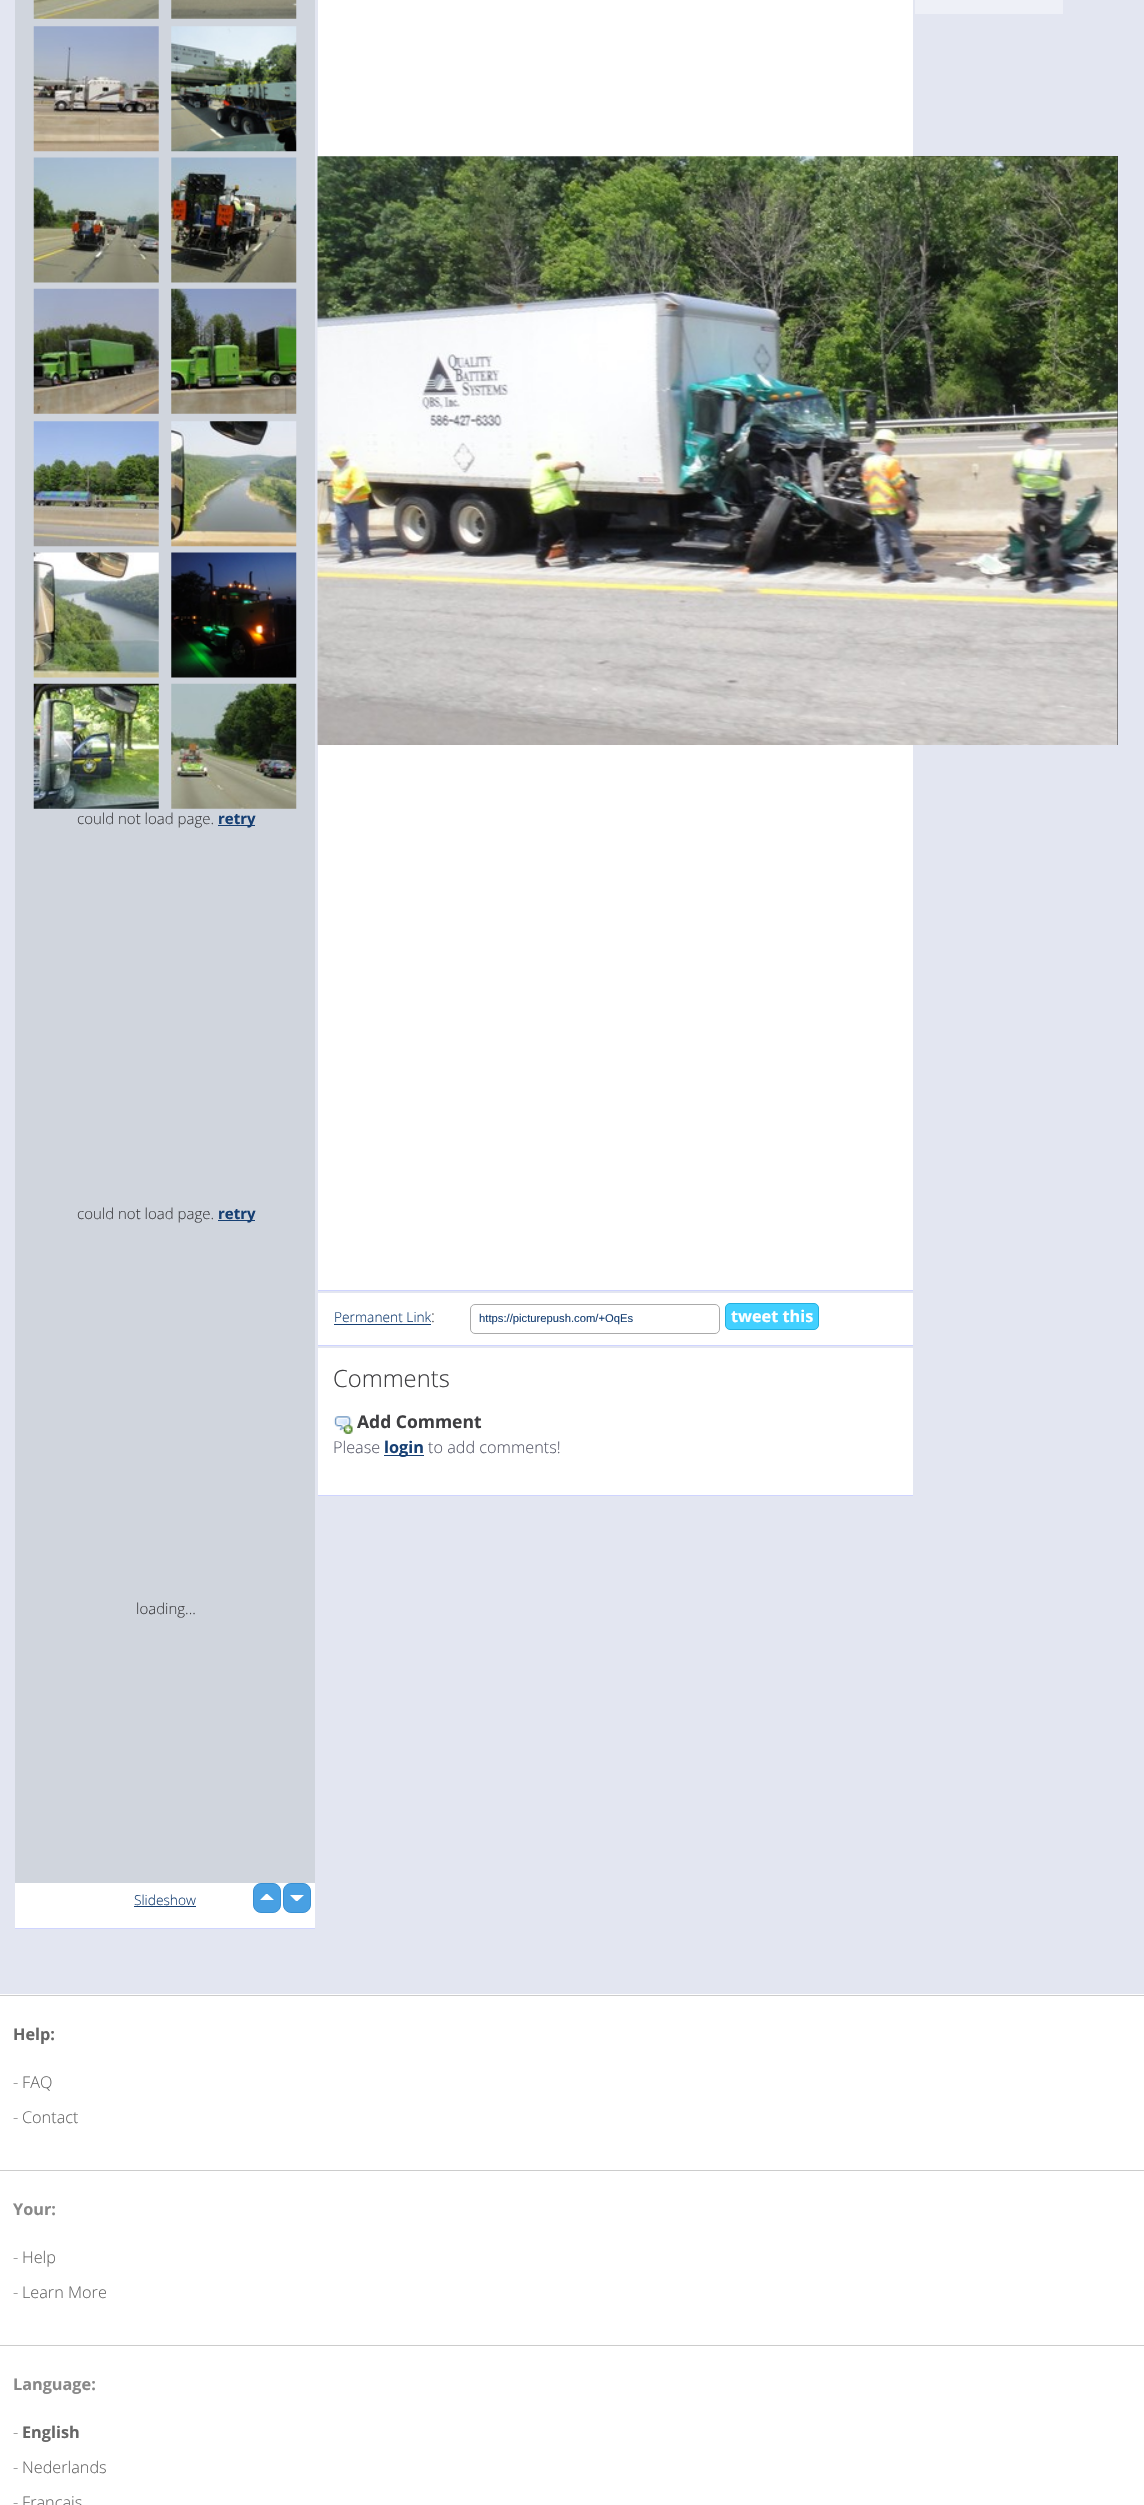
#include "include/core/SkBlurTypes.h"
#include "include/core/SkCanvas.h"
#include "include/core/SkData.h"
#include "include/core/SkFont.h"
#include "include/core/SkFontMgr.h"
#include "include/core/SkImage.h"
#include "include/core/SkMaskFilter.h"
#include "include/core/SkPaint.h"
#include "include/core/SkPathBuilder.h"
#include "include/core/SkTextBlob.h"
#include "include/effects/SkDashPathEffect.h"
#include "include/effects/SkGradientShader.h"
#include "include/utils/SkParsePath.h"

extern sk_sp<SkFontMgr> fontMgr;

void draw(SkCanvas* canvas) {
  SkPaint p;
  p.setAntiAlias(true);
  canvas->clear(SkColorSetRGB(227, 230, 241));
  p.setColor(SkColorSetRGB(45, 46, 48));
  canvas->drawRect(SkRect::MakeLTRB(913, 156, 1118, 745), p);
  p.setColor(SkColorSetRGB(208, 213, 221));
  canvas->drawRect(SkRect::MakeLTRB(15, 0, 315, 1883), p);
  p.setColor(SkColorSetRGB(207, 212, 255));
  canvas->drawRect(SkRect::MakeLTRB(15, 1928, 315, 1929), p);
  canvas->drawImageRect(SkImages::DeferredFromEncodedData(SkData::MakeFromFileName("images/1.png")), SkRect::MakeLTRB(33, 0, 159, 19), SkSamplingOptions());
  canvas->drawImageRect(SkImages::DeferredFromEncodedData(SkData::MakeFromFileName("images/2.png")), SkRect::MakeLTRB(171, 0, 297, 19), SkSamplingOptions());
  canvas->drawImageRect(SkImages::DeferredFromEncodedData(SkData::MakeFromFileName("images/3.png")), SkRect::MakeLTRB(33, 26, 159, 152), SkSamplingOptions());
  canvas->drawImageRect(SkImages::DeferredFromEncodedData(SkData::MakeFromFileName("images/4.png")), SkRect::MakeLTRB(171, 26, 297, 152), SkSamplingOptions());
  canvas->drawImageRect(SkImages::DeferredFromEncodedData(SkData::MakeFromFileName("images/5.png")), SkRect::MakeLTRB(33, 157, 159, 283), SkSamplingOptions());
  canvas->drawImageRect(SkImages::DeferredFromEncodedData(SkData::MakeFromFileName("images/6.png")), SkRect::MakeLTRB(171, 157, 297, 283), SkSamplingOptions());
  canvas->drawImageRect(SkImages::DeferredFromEncodedData(SkData::MakeFromFileName("images/7.png")), SkRect::MakeLTRB(33, 288, 159, 414), SkSamplingOptions());
  canvas->drawImageRect(SkImages::DeferredFromEncodedData(SkData::MakeFromFileName("images/8.png")), SkRect::MakeLTRB(171, 288, 297, 414), SkSamplingOptions());
  canvas->drawImageRect(SkImages::DeferredFromEncodedData(SkData::MakeFromFileName("images/9.png")), SkRect::MakeLTRB(33, 421, 159, 547), SkSamplingOptions());
  canvas->drawImageRect(SkImages::DeferredFromEncodedData(SkData::MakeFromFileName("images/10.png")), SkRect::MakeLTRB(171, 421, 297, 547), SkSamplingOptions());
  canvas->drawImageRect(SkImages::DeferredFromEncodedData(SkData::MakeFromFileName("images/11.png")), SkRect::MakeLTRB(33, 552, 159, 678), SkSamplingOptions());
  canvas->drawImageRect(SkImages::DeferredFromEncodedData(SkData::MakeFromFileName("images/12.png")), SkRect::MakeLTRB(171, 552, 297, 678), SkSamplingOptions());
  canvas->drawImageRect(SkImages::DeferredFromEncodedData(SkData::MakeFromFileName("images/13.png")), SkRect::MakeLTRB(33, 683, 159, 809), SkSamplingOptions());
  canvas->drawImageRect(SkImages::DeferredFromEncodedData(SkData::MakeFromFileName("images/14.png")), SkRect::MakeLTRB(171, 683, 297, 809), SkSamplingOptions());
  p.setColor(SkColorSetRGB(22, 63, 115));
  canvas->drawRect(SkRect::MakeLTRB(218, 825, 255, 826), p);
  canvas->drawRect(SkRect::MakeLTRB(218, 1220, 255, 1221), p);
  p.setColor(SK_ColorWHITE);
  canvas->drawRect(SkRect::MakeLTRB(15, 1883, 315, 1928), p);
  p.setColor(SkColorSetRGB(72, 160, 227));
  canvas->drawRoundRect(SkRect::MakeLTRB(253.5f, 1883.5f, 280.5f, 1912.5f), 7.5f, 7.5f, p);
  p.setStyle(SkPaint::kStroke_Style);
  p.setStrokeWidth(1);
  p.setColor(SkColorSetRGB(56, 144, 211));
  canvas->drawRoundRect(SkRect::MakeLTRB(253.5f, 1883.5f, 280.5f, 1912.5f), 7.5f, 7.5f, p);
  p.setStyle(SkPaint::kFill_Style);
  p.setColor(SkColorSetRGB(72, 160, 227));
  canvas->drawRoundRect(SkRect::MakeLTRB(283.5f, 1883.5f, 310.5f, 1912.5f), 7.5f, 7.5f, p);
  p.setStyle(SkPaint::kStroke_Style);
  p.setColor(SkColorSetRGB(56, 144, 211));
  canvas->drawRoundRect(SkRect::MakeLTRB(283.5f, 1883.5f, 310.5f, 1912.5f), 7.5f, 7.5f, p);
  p.setStyle(SkPaint::kFill_Style);
  p.setColor(SK_ColorWHITE);
  canvas->drawPath(SkPathBuilder().moveTo(274, 1900).lineTo(260, 1900).lineTo(266, 1894).lineTo(267.5f, 1894).close().moveTo(290, 1895).lineTo(304, 1895).lineTo(297.5f, 1901).lineTo(296, 1901).close().detach(), p);
  p.setColor(SkColorSetRGB(22, 63, 115));
  canvas->drawRect(SkRect::MakeLTRB(134, 1906, 196, 1907), p);
  p.setColor(SK_ColorWHITE);
  canvas->drawRect(SkRect::MakeLTRB(318, 0, 913, 1290), p);
  p.setColor(SkColorSetRGB(207, 212, 255));
  canvas->drawRect(SkRect::MakeLTRB(318, 1290, 913, 1291), p);
  p.setColor(SkColorSetRGB(238, 240, 247));
  canvas->drawRect(SkRect::MakeLTRB(915, 0, 1063, 14), p);
  canvas->drawImageRect(SkImages::DeferredFromEncodedData(SkData::MakeFromFileName("images/15.png")), SkRect::MakeLTRB(317, 156, 1118, 745), SkSamplingOptions());
  p.setColor(SK_ColorWHITE);
  canvas->drawRect(SkRect::MakeLTRB(318, 1293, 913, 1345), p);
  p.setColor(SkColorSetRGB(207, 212, 255));
  canvas->drawRect(SkRect::MakeLTRB(318, 1345, 913, 1346), p);
  p.setColor(SkColorSetRGB(22, 63, 115));
  canvas->drawRect(SkRect::MakeLTRB(334, 1324, 431, 1325), p);
  p.setStyle(SkPaint::kStroke_Style);
  p.setColor(SkColorSetRGB(170, 170, 170));
  canvas->drawRoundRect(SkRect::MakeLTRB(470.5f, 1304.5f, 719.5f, 1333.5f), 4.5f, 4.5f, p);
  p.setStyle(SkPaint::kFill_Style);
  p.setColor(SkColorSetRGB(66, 208, 255));
  canvas->drawRoundRect(SkRect::MakeLTRB(725.5f, 1303.5f, 818.5f, 1329.5f), 4.5f, 4.5f, p);
  p.setStyle(SkPaint::kStroke_Style);
  p.setColor(SkColorSetRGB(34, 176, 223));
  canvas->drawRoundRect(SkRect::MakeLTRB(725.5f, 1303.5f, 818.5f, 1329.5f), 4.5f, 4.5f, p);
  p.setStyle(SkPaint::kFill_Style);
  p.setColor(SK_ColorWHITE);
  canvas->drawRect(SkRect::MakeLTRB(318, 1348, 913, 1495), p);
  p.setColor(SkColorSetRGB(207, 212, 255));
  canvas->drawRect(SkRect::MakeLTRB(318, 1495, 913, 1496), p);
  canvas->drawImageRect(SkImages::DeferredFromEncodedData(SkData::MakeFromFileName("images/16.png")), SkRect::MakeLTRB(333, 1416, 353, 1434), SkSamplingOptions());
  p.setColor(SkColorSetRGB(22, 63, 115));
  canvas->drawRect(SkRect::MakeLTRB(384, 1455, 424, 1456), p);
  p.setColor(SK_ColorWHITE);
  canvas->drawRect(SkRect::MakeLTRB(0, 1994, 1144, 2505), p);
  p.setColor(SkColorSetRGB(204, 204, 204));
  canvas->drawRect(SkRect::MakeLTRB(0, 1995, 1144, 1996), p);
  canvas->drawRect(SkRect::MakeLTRB(0, 2170, 1144, 2171), p);
  canvas->drawRect(SkRect::MakeLTRB(0, 2345, 1144, 2346), p);
  SkFont font1(fontMgr->matchFamilyStyle("Open Sans", SkFontStyle(300, SkFontStyle::kNormal_Width, SkFontStyle::kUpright_Slant)), 15);
  font1.setSubpixel(true);
  p.setColor(SkColorSetRGB(62, 62, 65));
  canvas->drawString("could not load page.", 77, 824, font1, p);
  SkFont font2(fontMgr->matchFamilyStyle("Open Sans", SkFontStyle::Bold()), 15);
  font2.setSubpixel(true);
  p.setColor(SkColorSetRGB(22, 63, 115));
  canvas->drawString("retry", 218, 824, font2, p);
  p.setColor(SkColorSetRGB(62, 62, 65));
  canvas->drawString("could not load page.", 77, 1219, font1, p);
  p.setColor(SkColorSetRGB(22, 63, 115));
  canvas->drawString("retry", 218, 1219, font2, p);
  p.setColor(SkColorSetRGB(62, 62, 65));
  canvas->drawString("loading...", 136, 1614, font1, p);
  SkFont font3(fontMgr->matchFamilyStyle("Open Sans", SkFontStyle(300, SkFontStyle::kNormal_Width, SkFontStyle::kUpright_Slant)), 13.75f);
  font3.setSubpixel(true);
  p.setColor(SkColorSetRGB(22, 63, 115));
  canvas->drawString("Slideshow", 134, 1905, font3, p);
  canvas->drawString("Permanent Link", 334, 1322, font3, p);
  SkFont font4(fontMgr->matchFamilyStyle("Open Sans", SkFontStyle(300, SkFontStyle::kNormal_Width, SkFontStyle::kUpright_Slant)), 16.25f);
  font4.setSubpixel(true);
  p.setColor(SkColorSetRGB(62, 62, 65));
  canvas->drawString(":", 431, 1322, font4, p);
  SkFont font5(fontMgr->matchFamilyStyle("Liberation Sans", SkFontStyle::Normal()), 11.25f);
  font5.setSubpixel(true);
  p.setColor(SkColorSetRGB(22, 63, 115));
  canvas->drawString("https://picturepush.com/+OqEs", 479, 1322, font5, p);
  SkFont font6(fontMgr->matchFamilyStyle("Open Sans", SkFontStyle::Bold()), 16.25f);
  font6.setSubpixel(true);
  p.setColor(SK_ColorWHITE);
  canvas->drawString("tweet this", 731, 1322, font6, p);
  SkFont font7(fontMgr->matchFamilyStyle("Open Sans", SkFontStyle(300, SkFontStyle::kNormal_Width, SkFontStyle::kUpright_Slant)), 23.75f);
  font7.setSubpixel(true);
  p.setColor(SkColorSetRGB(62, 62, 65));
  canvas->drawString("Comments", 333, 1387, font7, p);
  SkFont font8(fontMgr->matchFamilyStyle("Open Sans", SkFontStyle::Bold()), 17.5f);
  font8.setSubpixel(true);
  canvas->drawString("Add Comment", 357, 1428, font8, p);
  p.setColor(SkColorSetRGB(90, 92, 108));
  canvas->drawString("Please", 333, 1453, font4, p);
  p.setColor(SkColorSetRGB(22, 63, 115));
  canvas->drawString("login", 384, 1453, font6, p);
  p.setColor(SkColorSetRGB(90, 92, 108));
  canvas->drawString("to add comments!", 428, 1453, font4, p);
  p.setColor(SkColorSetRGB(102, 102, 102));
  canvas->drawString("Help:", 13, 2040, font6, p);
  p.setColor(SkColorSetRGB(136, 136, 136));
  canvas->drawString("-", 13, 2088, font4, p);
  p.setColor(SkColorSetRGB(102, 102, 102));
  canvas->drawString("FAQ", 22, 2088, font4, p);
  p.setColor(SkColorSetRGB(136, 136, 136));
  canvas->drawString("-", 13, 2123, font4, p);
  p.setColor(SkColorSetRGB(102, 102, 102));
  canvas->drawString("Contact", 22, 2123, font4, p);
  p.setColor(SkColorSetRGB(136, 136, 136));
  canvas->drawString("Your:", 13, 2215, font6, p);
  canvas->drawString("-", 13, 2263, font4, p);
  p.setColor(SkColorSetRGB(102, 102, 102));
  canvas->drawString("Help", 22, 2263, font4, p);
  p.setColor(SkColorSetRGB(136, 136, 136));
  canvas->drawString("-", 13, 2298, font4, p);
  p.setColor(SkColorSetRGB(102, 102, 102));
  canvas->drawString("Learn More", 22, 2298, font4, p);
  p.setColor(SkColorSetRGB(136, 136, 136));
  canvas->drawString("Language:", 13, 2390, font6, p);
  canvas->drawString("-", 13, 2438, font4, p);
  p.setColor(SkColorSetRGB(102, 102, 102));
  canvas->drawString("English", 22, 2438, font6, p);
  p.setColor(SkColorSetRGB(136, 136, 136));
  canvas->drawString("-", 13, 2473, font4, p);
  p.setColor(SkColorSetRGB(102, 102, 102));
  canvas->drawString("Nederlands", 22, 2473, font4, p);
  p.setColor(SkColorSetRGB(136, 136, 136));
  canvas->drawString("-", 13, 2508, font4, p);
  p.setColor(SkColorSetRGB(102, 102, 102));
  canvas->drawString("Français", 22, 2508, font4, p);
}
